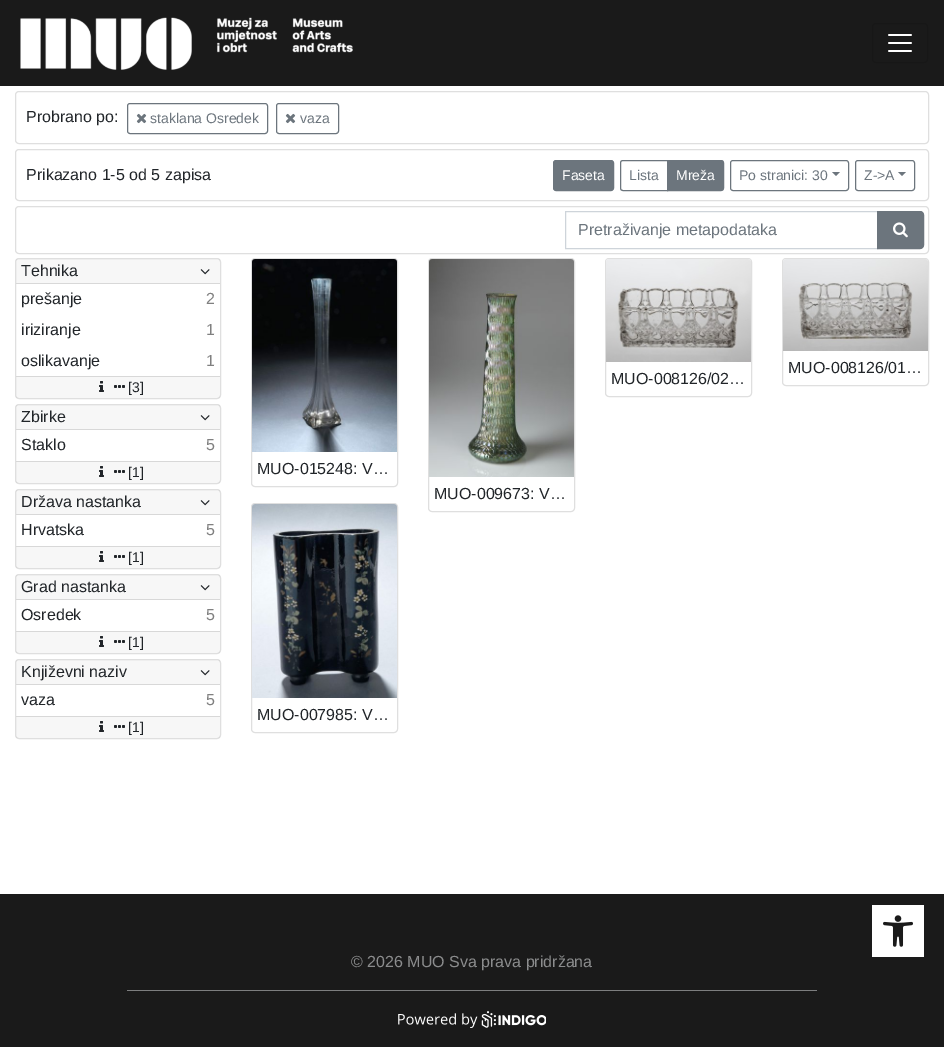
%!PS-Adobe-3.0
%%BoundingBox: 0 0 944 1047
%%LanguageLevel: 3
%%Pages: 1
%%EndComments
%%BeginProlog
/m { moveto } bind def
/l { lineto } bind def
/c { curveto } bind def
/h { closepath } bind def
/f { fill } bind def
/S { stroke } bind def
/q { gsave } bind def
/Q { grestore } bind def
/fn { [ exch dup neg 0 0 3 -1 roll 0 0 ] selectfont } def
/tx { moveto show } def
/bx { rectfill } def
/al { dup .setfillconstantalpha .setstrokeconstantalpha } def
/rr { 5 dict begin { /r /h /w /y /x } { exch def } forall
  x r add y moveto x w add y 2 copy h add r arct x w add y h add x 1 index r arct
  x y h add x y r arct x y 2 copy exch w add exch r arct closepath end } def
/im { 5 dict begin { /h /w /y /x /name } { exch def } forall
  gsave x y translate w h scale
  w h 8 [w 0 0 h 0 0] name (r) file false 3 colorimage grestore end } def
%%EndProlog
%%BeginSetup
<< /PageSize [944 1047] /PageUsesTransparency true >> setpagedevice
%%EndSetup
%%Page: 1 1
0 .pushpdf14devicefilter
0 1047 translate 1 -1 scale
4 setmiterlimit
1 setgray
0 0 944 1047 bx
0.102 setgray
0 0 944 86 bx
(image0.raw) 20 17 333 53 im
0.09 setgray
872.5 23.5 55 39 3.5 rr S
(image1.raw) 888 34 24 18 im
0.875 setgray
15.5 91.5 913 52 3.5 rr S
/LiberationSans-Regular 16 fn
0.129 0.145 0.161 setrgbcolor
(Probrano po:) 26 122 tx
0.424 0.459 0.49 setrgbcolor
127.5 103.5 140 30 2.5 rr S
(image2.raw) 136 113 11 11 im
/LiberationSans-Regular 14 fn
(staklana Osredek) 150 123 tx
276.5 103.5 62 30 2.5 rr S
(image2.raw) 285 113 11 11 im
(vaza) 300 123 tx
0.875 setgray
15.5 149.5 913 51 3.5 rr S
/LiberationSans-Regular 16 fn
0.129 0.145 0.161 setrgbcolor
(Prikazano 1-5 od 5 zapisa) 26 180 tx
0.424 0.459 0.49 setrgbcolor
553.5 160.5 60 30 2.5 rr q f Q
S
/LiberationSans-Regular 14 fn
1 setgray
(Faseta) 562 180 tx
0.424 0.459 0.49 setrgbcolor
623 160.5 m 667.5 160.5 l 667.5 190.5 l 623 190.5 l 621.5 190.5 620.5 189.5 620.5 188 c 620.5 163 l 620.5 161.5 621.5 160.5 623 160.5 c h S
(Lista) 629 180 tx
667.5 160.5 m 721 160.5 l 722.5 160.5 723.5 161.5 723.5 163 c 723.5 188 l 723.5 189.5 722.5 190.5 721 190.5 c 667.5 190.5 l h q f Q
S
1 setgray
(Mreža) 676 180 tx
0.424 0.459 0.49 setrgbcolor
730.5 160.5 118 30 2.5 rr S
(Po stranici: 30) 739 180 tx
832 172 m 840 172 l 836 176 l h f
855.5 160.5 59 30 2.5 rr S
(Z->A) 864 180 tx
898 172 m 906 172 l 902 176 l h f
0.875 setgray
15.5 206.5 913 47 3.5 rr S
0.808 0.831 0.855 setrgbcolor
565.5 211.5 312 37 rectstroke
/LiberationSans-Regular 16 fn
0.424 0.459 0.49 setrgbcolor
(Pretraživanje metapodataka) 578 235 tx
877.5 211.5 m 920 211.5 l 922 211.5 923.5 213 923.5 215 c 923.5 245 l 923.5 247 922 248.5 920 248.5 c 877.5 248.5 l h q f Q
S
(image3.raw) 893 222 15 16 im
0.875 setgray
15.5 258.5 205 140 3.5 rr S
0.03 al
0 setgray
16 259 204 24 bx
1 al
0.847 setgray
16 283 204 1 bx
0.129 0.145 0.161 setrgbcolor
(Tehnika) 21 276 tx
(image4.raw) 200 269 10 6 im
(prešanje) 21 304 tx
0.502 setgray
(2) 206 304 tx
0.129 0.145 0.161 setrgbcolor
(iriziranje) 21 335 tx
0.502 setgray
(1) 206 335 tx
0.129 0.145 0.161 setrgbcolor
(oslikavanje) 21 366 tx
0.502 setgray
(1) 206 366 tx
0.03 al
0 setgray
16 377 204 21 bx
1 al
0.847 setgray
16 376 204 1 bx
(image5.raw) 99 381 5 11 im
(image6.raw) 114 385 11 3 im
/LiberationSans-Regular 14 fn
0.129 0.145 0.161 setrgbcolor
([3]) 128 392 tx
0.875 setgray
15.5 404.5 205 79 3.5 rr S
0.03 al
0 setgray
16 405 204 24 bx
1 al
0.847 setgray
16 429 204 1 bx
/LiberationSans-Regular 16 fn
0.129 0.145 0.161 setrgbcolor
(Zbirke) 21 422 tx
(image4.raw) 200 415 10 6 im
(Staklo) 21 450 tx
0.502 setgray
(5) 206 450 tx
0.03 al
0 setgray
16 462 204 21 bx
1 al
0.847 setgray
16 461 204 1 bx
(image5.raw) 99 466 5 11 im
(image6.raw) 114 470 11 3 im
/LiberationSans-Regular 14 fn
0.129 0.145 0.161 setrgbcolor
([1]) 128 477 tx
0.875 setgray
15.5 489.5 205 79 3.5 rr S
0.03 al
0 setgray
16 490 204 24 bx
1 al
0.847 setgray
16 514 204 1 bx
/LiberationSans-Regular 16 fn
0.129 0.145 0.161 setrgbcolor
(Država nastanka) 21 507 tx
(image4.raw) 200 500 10 6 im
(Hrvatska) 21 535 tx
0.502 setgray
(5) 206 535 tx
0.03 al
0 setgray
16 547 204 21 bx
1 al
0.847 setgray
16 546 204 1 bx
(image5.raw) 99 551 5 11 im
(image6.raw) 114 555 11 3 im
/LiberationSans-Regular 14 fn
0.129 0.145 0.161 setrgbcolor
([1]) 128 562 tx
0.875 setgray
15.5 574.5 205 79 3.5 rr S
0.03 al
0 setgray
16 575 204 24 bx
1 al
0.847 setgray
16 599 204 1 bx
/LiberationSans-Regular 16 fn
0.129 0.145 0.161 setrgbcolor
(Grad nastanka) 21 592 tx
(image4.raw) 200 585 10 6 im
(Osredek) 21 620 tx
0.502 setgray
(5) 206 620 tx
0.03 al
0 setgray
16 632 204 21 bx
1 al
0.847 setgray
16 631 204 1 bx
(image5.raw) 99 636 5 11 im
(image6.raw) 114 640 11 3 im
/LiberationSans-Regular 14 fn
0.129 0.145 0.161 setrgbcolor
([1]) 128 647 tx
0.875 setgray
15.5 659.5 205 79 3.5 rr S
0.03 al
0 setgray
16 660 204 24 bx
1 al
0.847 setgray
16 684 204 1 bx
/LiberationSans-Regular 16 fn
0.129 0.145 0.161 setrgbcolor
(Književni naziv) 21 677 tx
(image4.raw) 200 670 10 6 im
(vaza) 21 705 tx
0.502 setgray
(5) 206 705 tx
0.03 al
0 setgray
16 717 204 21 bx
1 al
0.847 setgray
16 716 204 1 bx
(image5.raw) 99 721 5 11 im
(image6.raw) 114 725 11 3 im
/LiberationSans-Regular 14 fn
0.129 0.145 0.161 setrgbcolor
([1]) 128 732 tx
0.875 setgray
782.5 258.5 146 127 3.5 rr S
(image7.raw) 783 259 145 92 im
/LiberationSans-Regular 16 fn
0.129 0.145 0.161 setrgbcolor
(MUO-008126/01…) 788 373 tx
0.875 setgray
605.5 258.5 146 138 3.5 rr S
(image8.raw) 606 259 145 103 im
0.129 0.145 0.161 setrgbcolor
(MUO-008126/02…) 611 384 tx
0.875 setgray
251.5 258.5 146 228 3.5 rr S
(image9.raw) 252 259 145 193 im
0.129 0.145 0.161 setrgbcolor
(MUO-015248: V…) 257 474 tx
0.875 setgray
428.5 258.5 146 253 3.5 rr S
(image10.raw) 429 259 145 218 im
0.129 0.145 0.161 setrgbcolor
(MUO-009673: V…) 434 499 tx
0.875 setgray
251.5 503.5 146 229 3.5 rr S
(image11.raw) 252 504 145 194 im
0.129 0.145 0.161 setrgbcolor
(MUO-007985: V…) 257 720 tx
0.102 setgray
0 894 944 153 bx
1 setgray
872 905 52 52 bx
(image12.raw) 883 915 30 32 im
0.545 0.549 0.553 setrgbcolor
(© 2026 MUO Sva prava pridržana) 351 967 tx
0.49 0.494 0.498 setrgbcolor
127 990 690 1 bx
(image13.raw) 398 1011 148 17 im
.poppdf14devicefilter showpage
%%EOF
